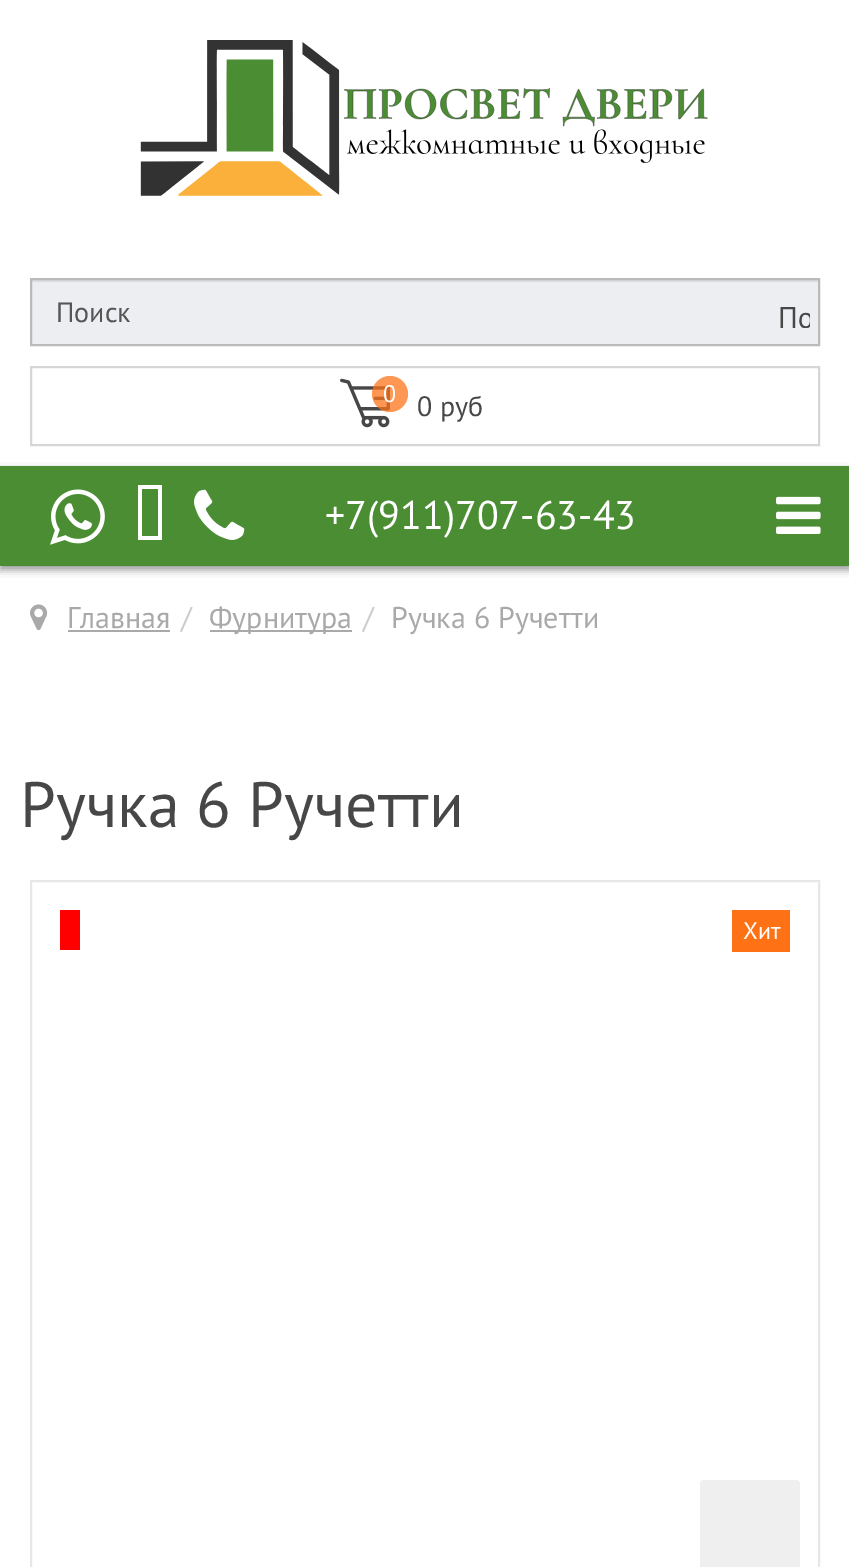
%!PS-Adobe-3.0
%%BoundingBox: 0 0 849 1567
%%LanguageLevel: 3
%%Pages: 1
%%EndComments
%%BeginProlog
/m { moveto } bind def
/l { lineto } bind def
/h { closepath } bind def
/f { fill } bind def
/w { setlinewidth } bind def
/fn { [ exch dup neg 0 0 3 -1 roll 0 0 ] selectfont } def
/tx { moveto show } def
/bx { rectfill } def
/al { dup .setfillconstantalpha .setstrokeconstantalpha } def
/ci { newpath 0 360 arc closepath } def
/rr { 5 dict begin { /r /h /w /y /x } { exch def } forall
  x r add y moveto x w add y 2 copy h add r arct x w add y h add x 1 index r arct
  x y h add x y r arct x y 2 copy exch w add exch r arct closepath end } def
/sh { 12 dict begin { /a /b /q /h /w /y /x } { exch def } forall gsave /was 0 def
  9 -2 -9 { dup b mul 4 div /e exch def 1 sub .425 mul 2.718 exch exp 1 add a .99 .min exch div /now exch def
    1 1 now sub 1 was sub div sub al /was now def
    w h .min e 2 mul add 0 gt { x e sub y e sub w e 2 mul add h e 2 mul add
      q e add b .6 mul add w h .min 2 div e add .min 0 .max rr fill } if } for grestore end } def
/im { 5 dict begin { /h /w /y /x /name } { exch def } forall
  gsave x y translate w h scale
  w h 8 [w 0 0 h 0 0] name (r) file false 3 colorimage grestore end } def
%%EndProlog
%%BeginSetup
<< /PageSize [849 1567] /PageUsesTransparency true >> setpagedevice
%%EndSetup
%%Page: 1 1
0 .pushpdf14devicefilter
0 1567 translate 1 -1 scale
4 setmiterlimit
1 setgray
0 0 849 1567 bx
(image0.raw) 140 40 568 156 im
0.925 0.933 0.945 setrgbcolor
32 282 786 62 bx
0.855 0.863 0.875 setrgbcolor
32 280 786 2 bx
0.729 setgray
2 w
31 279 788 66 rectstroke
/PTSans-Regular 28 fn
0.333 setgray
(Поиск) 56 322 tx
(image1.raw) 780 307 30 21 im
0.839 setgray
31 367 788 78 rectstroke
(image2.raw) 340 378 50 50 im
0.73 al
1 0.443 0.082 setrgbcolor
390 394 18 ci f
/PTSans-Regular 24 fn
1 al
1 setgray
(0) 383 402 tx
/PTSans-Regular 28 fn
0.278 setgray
(0 руб) 417 416 tx
0 setgray
0 470 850 100 0 4 0.4 sh
0.294 0.553 0.196 setrgbcolor
0 466 849 100 bx
(image3.raw) 50 489 55 56 im
1 setgray
142 536 m 158 536 l 158 489 l 142 489 l h 138 540 m 138 485 l 162 485 l 162 540 l h f
(image4.raw) 194 489 51 51 im
/PTSans-Regular 40 fn
(+7\(911\)707-63-43) 325 529 tx
(image5.raw) 776 496 45 38 im
(image6.raw) 30 604 18 27 im
/PTSans-Regular 30 fn
0.663 setgray
(Главная) 67 628 tx
68 630 102 2 bx
0.8 setgray
(/) 181 628 tx
0.663 setgray
210 630 142 2 bx
(Фурнитура) 209 628 tx
0.8 setgray
(/) 363 628 tx
0.663 setgray
(Ручка 6 Ручетти) 391 628 tx
/PTSans-Regular 64 fn
0.278 setgray
(Ручка 6 Ручетти) 20 827 tx
0.906 setgray
31 881 788 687 rectstroke
0.937 setgray
700 1480 100 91 4 rr f
1 0 0 setrgbcolor
60 910 20 40 bx
1 0.443 0.082 setrgbcolor
732 910 58 42 bx
/PTSans-Regular 24 fn
1 setgray
(Хит) 743 939 tx
.poppdf14devicefilter showpage
%%EOF
